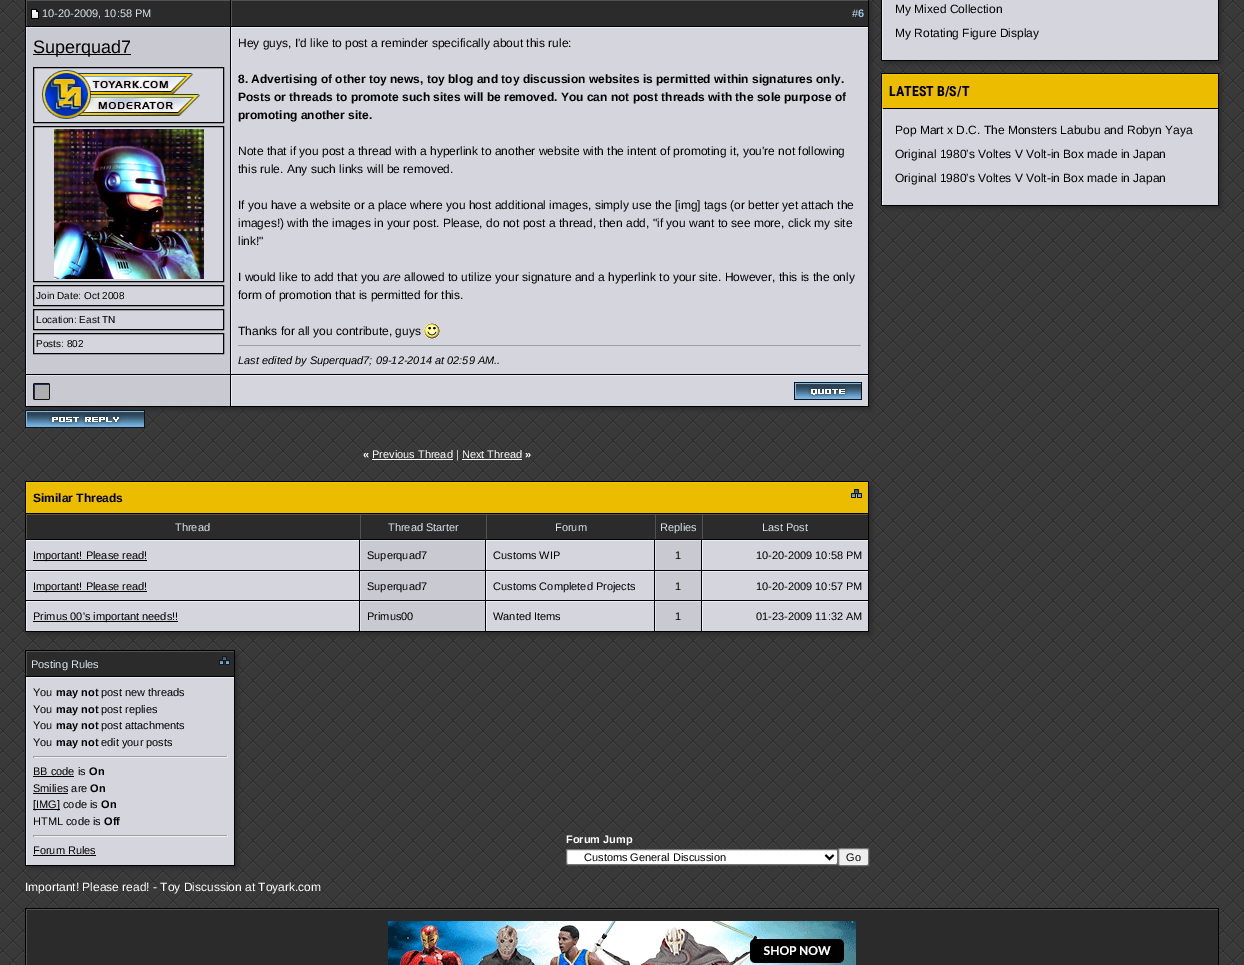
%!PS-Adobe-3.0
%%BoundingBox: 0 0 1244 965
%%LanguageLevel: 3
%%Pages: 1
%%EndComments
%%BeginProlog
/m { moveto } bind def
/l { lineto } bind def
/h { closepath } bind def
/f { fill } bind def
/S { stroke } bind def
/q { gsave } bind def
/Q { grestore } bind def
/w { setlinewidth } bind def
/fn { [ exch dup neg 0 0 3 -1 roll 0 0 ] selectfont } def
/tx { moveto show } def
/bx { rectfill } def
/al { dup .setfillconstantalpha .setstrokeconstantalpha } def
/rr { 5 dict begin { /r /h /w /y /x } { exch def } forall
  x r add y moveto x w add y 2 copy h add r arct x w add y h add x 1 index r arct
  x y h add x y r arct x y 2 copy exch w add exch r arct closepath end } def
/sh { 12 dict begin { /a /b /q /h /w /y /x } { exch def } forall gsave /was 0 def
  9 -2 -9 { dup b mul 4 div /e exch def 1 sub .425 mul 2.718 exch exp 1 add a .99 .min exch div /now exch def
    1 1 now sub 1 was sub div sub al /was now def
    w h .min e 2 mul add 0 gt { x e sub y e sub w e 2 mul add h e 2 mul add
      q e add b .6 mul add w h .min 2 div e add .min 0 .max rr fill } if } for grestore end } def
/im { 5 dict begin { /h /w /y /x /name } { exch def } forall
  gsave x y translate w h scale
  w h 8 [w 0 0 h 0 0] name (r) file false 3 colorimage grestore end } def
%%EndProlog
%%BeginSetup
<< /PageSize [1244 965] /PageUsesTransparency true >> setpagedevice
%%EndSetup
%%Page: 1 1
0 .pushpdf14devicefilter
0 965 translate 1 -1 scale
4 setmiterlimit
1 setgray
0 0 1244 965 bx
(image0.raw) 0 0 1244 965 im
0.161 0.161 0.169 setrgbcolor
29 3 842 406 0 2.5 1 sh
0 setgray
25 0 844 407 bx
0.169 setgray
27 1 203 25 bx
0.322 setgray
26 0 204 1 bx
26 0 1 26 bx
(image1.raw) 31 9 8 10 im
/LiberationSans-Regular 11 fn
0.847 0.894 0.929 setrgbcolor
(10-20-2009, 10:58 PM) 42 17 tx
0.169 setgray
232 1 636 25 bx
0.322 setgray
231 0 637 1 bx
231 0 1 26 bx
0.847 0.894 0.929 setrgbcolor
(#) 852 17 tx
/LiberationSans-Bold 11 fn
0.569 0.773 0.929 setrgbcolor
(6) 858 17 tx
0.788 0.788 0.82 setrgbcolor
27 28 203 346 bx
0.882 0.882 0.922 setrgbcolor
26 27 204 1 bx
26 27 1 347 bx
0 setgray
33 54 98 1 bx
/LiberationSans-Regular 18 fn
(Superquad7) 33 53 tx
0.835 0.835 0.871 setrgbcolor
33.5 67.5 m 223.5 67.5 l 223.5 122.5 l 33.5 122.5 l h q f Q
0 setgray
S
(image2.raw) 42 70 158 49 im
0.835 0.835 0.871 setrgbcolor
33.5 126.5 m 223.5 126.5 l 223.5 281.5 l 33.5 281.5 l h q f Q
0 setgray
S
(image3.raw) 54 129 150 150 im
0.835 0.835 0.871 setrgbcolor
33.5 285.5 m 223.5 285.5 l 223.5 305.5 l 33.5 305.5 l h q f Q
0 setgray
S
/LiberationSans-Regular 10 fn
(Join Date: Oct 2008) 36 299 tx
0.835 0.835 0.871 setrgbcolor
33.5 309.5 m 223.5 309.5 l 223.5 329.5 l 33.5 329.5 l h q f Q
0 setgray
S
(Location: East TN) 36 323 tx
0.835 0.835 0.871 setrgbcolor
33.5 333.5 m 223.5 333.5 l 223.5 353.5 l 33.5 353.5 l h q f Q
0 setgray
S
(Posts: 802) 36 347 tx
0.835 0.835 0.871 setrgbcolor
232 28 636 346 bx
0.929 0.929 0.969 setrgbcolor
231 27 637 1 bx
231 27 1 347 bx
/LiberationSans-Regular 12 fn
0 setgray
(Hey guys, I'd like to post a reminder specifically about this rule:) 238 47 tx
/LiberationSans-Bold 12 fn
(8. Advertising of other toy news, toy blog and toy discussion websites is permitted within signatures only.) 238 83 tx
(Posts or threads to promote such sites will be removed. You can not post threads with the sole purpose of) 238 101 tx
(promoting another site.) 238 119 tx
/LiberationSans-Regular 12 fn
(Note that if you post a thread with a hyperlink to another website with the intent of promoting it, you're not following) 238 155 tx
(this rule. Any such links will be removed.) 238 173 tx
(If you have a website or a place where you host additional images, simply use the [img] tags \(or better yet attach the) 238 209 tx
(images!\) with the images in your post. Please, do not post a thread, then add, "if you want to see more, click my site) 238 227 tx
(link!") 238 245 tx
(I would like to add that you) 238 281 tx
/LiberationSans-Italic 12 fn
(are) 383 281 tx
/LiberationSans-Regular 12 fn
(allowed to utilize your signature and a hyperlink to your site. However, this is the only) 404 281 tx
(form of promotion that is permitted for this.) 238 299 tx
(Thanks for all you contribute, guys) 238 335 tx
(image4.raw) 424 323 16 16 im
0.624 setgray
238 345 624 1 bx
0.933 setgray
861 345 1 1 bx
/LiberationSans-Italic 11 fn
0 setgray
(Last edited by Superquad7; 09-12-2014 at 02:59 AM..) 238 364 tx
0.788 0.788 0.82 setrgbcolor
27 376 203 30 bx
0.882 0.882 0.922 setrgbcolor
26 375 204 1 bx
26 375 1 31 bx
(image5.raw) 33 383 17 17 im
0.835 0.835 0.871 setrgbcolor
232 376 636 30 bx
0.929 0.929 0.969 setrgbcolor
231 375 637 1 bx
231 375 1 31 bx
(image6.raw) 794 382 68 18 im
(image7.raw) 25 410 120 18 im
/LiberationSans-Bold 11 fn
1 setgray
(«) 363 458 tx
372 459 81 1 bx
/LiberationSans-Regular 11 fn
(Previous Thread | Next Thread) 372 458 tx
/LiberationSans-Bold 11 fn
(») 525 458 tx
462 459 60 1 bx
0.161 0.161 0.169 setrgbcolor
29 485 842 149 0 2.5 1 sh
0 setgray
25 481 844 151 bx
0.922 0.737 0 setrgbcolor
27 483 841 30 bx
0.922 0.796 0 setrgbcolor
26 482 842 1 bx
26 482 1 31 bx
/LiberationSans-Bold 12 fn
0 setgray
(Similar Threads) 33 502 tx
(image8.raw) 851 489 11 9 im
0.169 setgray
27 515 675 24 bx
0.322 setgray
26 514 842 1 bx
26 514 1 25 bx
/LiberationSans-Regular 11 fn
0.847 0.894 0.929 setrgbcolor
(Thread) 175 531 tx
0.322 setgray
360 514 1 25 bx
0.847 0.894 0.929 setrgbcolor
(Thread Starter) 388 531 tx
0.322 setgray
486 514 1 25 bx
0.847 0.894 0.929 setrgbcolor
(Forum) 555 531 tx
0.322 setgray
655 514 1 25 bx
0.847 0.894 0.929 setrgbcolor
(Replies) 660 531 tx
0.169 setgray
703 515 165 24 bx
0.322 setgray
702 514 1 25 bx
0.847 0.894 0.929 setrgbcolor
(Last Post) 762 531 tx
0.835 0.835 0.871 setrgbcolor
27 541 332 29 bx
0.929 0.929 0.969 setrgbcolor
26 540 333 1 bx
26 540 1 30 bx
0 setgray
33 560 114 1 bx
(Important! Please read!) 33 559 tx
0.788 0.788 0.82 setrgbcolor
361 541 124 29 bx
0.882 0.882 0.922 setrgbcolor
360 540 125 1 bx
360 540 1 30 bx
0 setgray
(Superquad7) 367 559 tx
0.835 0.835 0.871 setrgbcolor
487 541 167 29 bx
0.929 0.929 0.969 setrgbcolor
486 540 168 1 bx
486 540 1 30 bx
0 setgray
(Customs WIP) 493 559 tx
0.788 0.788 0.82 setrgbcolor
656 541 45 29 bx
0.882 0.882 0.922 setrgbcolor
655 540 46 1 bx
655 540 1 30 bx
0 setgray
(1) 675 559 tx
0.835 0.835 0.871 setrgbcolor
703 541 165 29 bx
0.929 0.929 0.969 setrgbcolor
702 540 166 1 bx
702 540 1 30 bx
0 setgray
(10-20-2009 10:58 PM) 756 559 tx
0.835 0.835 0.871 setrgbcolor
27 572 332 28 bx
0.929 0.929 0.969 setrgbcolor
26 571 333 1 bx
26 571 1 29 bx
0 setgray
33 591 114 1 bx
(Important! Please read!) 33 590 tx
0.788 0.788 0.82 setrgbcolor
361 572 124 28 bx
0.882 0.882 0.922 setrgbcolor
360 571 125 1 bx
360 571 1 29 bx
0 setgray
(Superquad7) 367 590 tx
0.835 0.835 0.871 setrgbcolor
487 572 167 28 bx
0.929 0.929 0.969 setrgbcolor
486 571 168 1 bx
486 571 1 29 bx
0 setgray
(Customs Completed Projects) 493 590 tx
0.788 0.788 0.82 setrgbcolor
656 572 45 28 bx
0.882 0.882 0.922 setrgbcolor
655 571 46 1 bx
655 571 1 29 bx
0 setgray
(1) 675 590 tx
0.835 0.835 0.871 setrgbcolor
703 572 165 28 bx
0.929 0.929 0.969 setrgbcolor
702 571 166 1 bx
702 571 1 29 bx
0 setgray
(10-20-2009 10:57 PM) 756 590 tx
0.835 0.835 0.871 setrgbcolor
27 602 332 29 bx
0.929 0.929 0.969 setrgbcolor
26 601 333 1 bx
26 601 1 30 bx
0 setgray
33 621 145 1 bx
(Primus 00's important needs!!) 33 620 tx
0.788 0.788 0.82 setrgbcolor
361 602 124 29 bx
0.882 0.882 0.922 setrgbcolor
360 601 125 1 bx
360 601 1 30 bx
0 setgray
(Primus00) 367 620 tx
0.835 0.835 0.871 setrgbcolor
487 602 167 29 bx
0.929 0.929 0.969 setrgbcolor
486 601 168 1 bx
486 601 1 30 bx
0 setgray
(Wanted Items) 493 620 tx
0.788 0.788 0.82 setrgbcolor
656 602 45 29 bx
0.882 0.882 0.922 setrgbcolor
655 601 46 1 bx
655 601 1 30 bx
0 setgray
(1) 675 620 tx
0.835 0.835 0.871 setrgbcolor
703 602 165 29 bx
0.929 0.929 0.969 setrgbcolor
702 601 166 1 bx
702 601 1 30 bx
0 setgray
(01-23-2009 11:32 AM) 756 620 tx
0.161 0.161 0.169 setrgbcolor
29 654 208 214 0 2.5 1 sh
0 setgray
25 650 210 216 bx
0.169 setgray
27 652 207 24 bx
0.322 setgray
26 651 208 1 bx
26 651 1 25 bx
0.847 0.894 0.929 setrgbcolor
(Posting Rules) 31 668 tx
(image9.raw) 219 656 11 9 im
0.835 0.835 0.871 setrgbcolor
27 678 207 187 bx
0.929 0.929 0.969 setrgbcolor
26 677 208 1 bx
26 677 1 188 bx
0 setgray
(You) 33 696 tx
/LiberationSans-Bold 11 fn
(may not) 56 696 tx
/LiberationSans-Regular 11 fn
(post new threads) 101 696 tx
(You) 33 713 tx
/LiberationSans-Bold 11 fn
(may not) 56 713 tx
/LiberationSans-Regular 11 fn
(post replies) 101 713 tx
(You) 33 729 tx
/LiberationSans-Bold 11 fn
(may not) 56 729 tx
/LiberationSans-Regular 11 fn
(post attachments) 101 729 tx
(You) 33 746 tx
/LiberationSans-Bold 11 fn
(may not) 56 746 tx
/LiberationSans-Regular 11 fn
(edit your posts) 101 746 tx
0.624 setgray
33 756 195 1 bx
0.933 setgray
227 756 1 2 bx
33 757 195 1 bx
0.624 setgray
33 756 1 2 bx
0 setgray
(BB code is) 33 775 tx
33 776 41 1 bx
/LiberationSans-Bold 11 fn
(On) 89 775 tx
/LiberationSans-Regular 11 fn
(Smilies are) 33 792 tx
33 793 35 1 bx
/LiberationSans-Bold 11 fn
(On) 90 792 tx
33 809 27 1 bx
/LiberationSans-Regular 11 fn
([IMG] code is) 33 808 tx
/LiberationSans-Bold 11 fn
(On) 101 808 tx
/LiberationSans-Regular 11 fn
(HTML code is) 33 825 tx
/LiberationSans-Bold 11 fn
(Off) 104 825 tx
0.624 setgray
33 835 195 1 bx
0.933 setgray
227 835 1 2 bx
33 836 195 1 bx
0.624 setgray
33 835 1 2 bx
/LiberationSans-Regular 11 fn
0 setgray
(Forum Rules) 33 854 tx
33 855 63 1 bx
/LiberationSans-Bold 11 fn
1 setgray
(Forum Jump) 566 843 tx
566.5 849.5 271 15 1.5 rr q f Q
0.463 setgray
S
0 setgray
2 w
825.5 855 m 829.5 859 l 833.5 855 l S
/LiberationSans-Regular 11 fn
(Customs General Discussion) 584 861 tx
0.937 setgray
838.5 848.5 30 17 1.5 rr q f Q
0.463 setgray
1 w
S
0 setgray
(Go) 846 861 tx
/LiberationSans-Regular 12 fn
1 setgray
(Important! Please read! - Toy Discussion at Toyark.com) 25 891 tx
0.161 0.161 0.169 setrgbcolor
885 -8 336 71 0 2.5 1 sh
0 setgray
881 0 338 61 bx
0.835 0.835 0.871 setrgbcolor
883 0 335 60 bx
0.929 0.929 0.969 setrgbcolor
882 0 1 60 bx
0 setgray
(My Mixed Collection) 895 13 tx
(My Rotating Figure Display) 895 37 tx
0.161 0.161 0.169 setrgbcolor
885 77 336 131 0 2.5 1 sh
0 setgray
881 73 338 133 bx
0.922 0.737 0 setrgbcolor
883 75 335 33 bx
0.922 0.796 0 setrgbcolor
882 74 336 1 bx
882 74 1 35 bx
/RobotoCondensed-Bold 14 fn
0 setgray
(LATEST B/S/T) 889 96 tx
0.835 0.835 0.871 setrgbcolor
882 109 336 6 bx
0.929 0.929 0.969 setrgbcolor
882 109 1 96 bx
0.835 0.835 0.871 setrgbcolor
883 115 335 90 bx
/LiberationSans-Regular 12 fn
0 setgray
(Pop Mart x D.C. The Monsters Labubu and Robyn Yaya) 895 134 tx
(Original 1980's Voltes V Volt-in Box made in Japan) 895 158 tx
(Original 1980's Voltes V Volt-in Box made in Japan) 895 182 tx
0.169 setgray
27 910 1191 55 bx
q
26 909 1192 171 rectclip
0.322 setgray
-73 810 m 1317 810 l 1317 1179 l -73 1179 l h 27 910 m 1219 910 l 1219 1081 l 27 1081 l h eofill
Q
0 setgray
25 908 1194 1 bx
1218 908 1 57 bx
25 908 1 57 bx
(image10.raw) 388 921 468 44 im
.poppdf14devicefilter showpage
%%EOF
